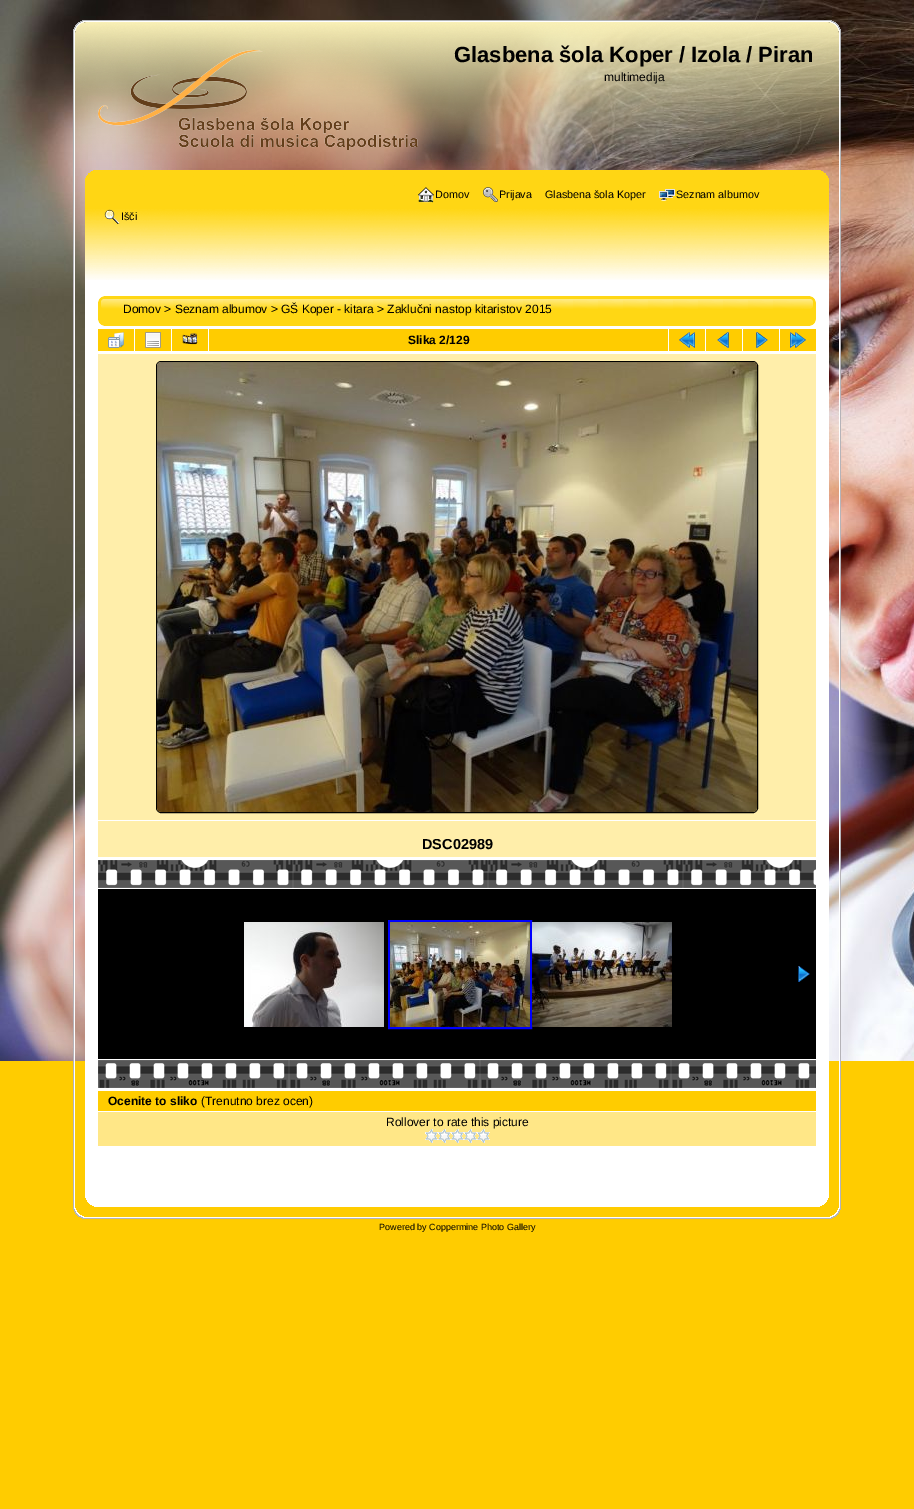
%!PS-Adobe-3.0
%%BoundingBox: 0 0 914 1509
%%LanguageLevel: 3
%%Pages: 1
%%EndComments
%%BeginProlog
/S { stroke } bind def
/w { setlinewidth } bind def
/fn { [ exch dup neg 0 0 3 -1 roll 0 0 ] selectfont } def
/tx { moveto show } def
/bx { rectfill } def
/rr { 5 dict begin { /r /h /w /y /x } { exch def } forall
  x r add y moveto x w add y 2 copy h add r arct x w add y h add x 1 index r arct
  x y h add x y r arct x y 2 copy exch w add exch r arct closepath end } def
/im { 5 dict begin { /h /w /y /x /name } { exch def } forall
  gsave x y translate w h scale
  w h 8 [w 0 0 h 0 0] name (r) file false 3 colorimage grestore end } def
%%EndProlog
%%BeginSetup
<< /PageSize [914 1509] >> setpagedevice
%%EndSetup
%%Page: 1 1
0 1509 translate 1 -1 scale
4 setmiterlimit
1 0.8 0 setrgbcolor
0 0 914 1509 bx
(image0.raw) 0 0 914 1061 im
(image1.raw) 73 20 25 150 im
(image2.raw) 816 20 25 150 im
(image3.raw) 98 20 718 148 im
(image4.raw) 98 50 320 100 im
/LiberationSans-Bold 22 fn
0 setgray
(Glasbena šola Koper / Izola / Piran) 454 62 tx
/LiberationSans-Regular 12 fn
(multimedija) 604 81 tx
(image5.raw) 73 170 25 110 im
(image6.raw) 816 170 25 110 im
(image7.raw) 98 170 718 110 im
/LiberationSans-Regular 10.75 fn
(Glasbena šola Koper) 545 198 tx
(image8.raw) 659 189 16 12 im
(Seznam albumov) 676 198 tx
(image9.raw) 104 209 16 15 im
(Išči) 121 220 tx
(image10.raw) 418 187 16 16 im
(Domov) 435 198 tx
(image11.raw) 483 187 15 16 im
(Prijava) 499 198 tx
(image12.raw) 73 280 24 882 im
(image13.raw) 817 280 24 882 im
1 setgray
97 280 720 882 bx
(image14.raw) 98 296 25 30 im
(image15.raw) 791 296 25 30 im
(image16.raw) 123 296 668 30 im
/LiberationSans-Regular 12 fn
0 setgray
(Domov > Seznam albumov > GŠ Koper - kitara > Zaklučni nastop kitaristov 2015) 123 313 tx
1 0.8 0 setrgbcolor
98 329 36 22 bx
(image17.raw) 108 332 16 16 im
135 329 36 22 bx
(image18.raw) 145 332 16 16 im
172 329 36 22 bx
(image19.raw) 182 333 16 12 im
209 329 459 22 bx
/LiberationSans-Bold 12 fn
0 setgray
(Slika 2/129) 408 344 tx
1 0.8 0 setrgbcolor
669 329 36 22 bx
(image20.raw) 679 332 16 16 im
706 329 36 22 bx
(image21.raw) 717 332 12 16 im
743 329 36 22 bx
(image22.raw) 756 332 12 16 im
780 329 36 22 bx
(image23.raw) 790 332 16 16 im
1 0.933 0.667 setrgbcolor
98 354 718 466 bx
0 setgray
156.5 361.5 601 451 4.5 rr S
(image24.raw) 157 362 600 450 im
1 0.933 0.667 setrgbcolor
98 821 718 36 bx
/LiberationSans-Bold 14.5 fn
0 setgray
(DSC02989) 422 849 tx
(image25.raw) 98 860 718 28 im
98 889 718 170 bx
(image26.raw) 244 922 140 105 im
0 0 1 setrgbcolor
2 w
389 921 142 107 rectstroke
(image27.raw) 390 922 140 105 im
(image28.raw) 532 922 140 105 im
(image29.raw) 798 966 12 16 im
(image30.raw) 98 1060 718 28 im
1 0.8 0 setrgbcolor
98 1091 718 20 bx
/LiberationSans-Bold 12 fn
0 setgray
(Ocenite to sliko) 108 1105 tx
/LiberationSans-Regular 12 fn
(\(Trenutno brez ocen\)) 201 1105 tx
1 0.906 0.529 setrgbcolor
98 1112 718 34 bx
0 setgray
(Rollover to rate this picture) 386 1126 tx
(image31.raw) 425 1129 13 14 im
(image31.raw) 438 1129 13 14 im
(image31.raw) 451 1129 13 14 im
(image31.raw) 464 1129 13 14 im
(image31.raw) 477 1129 13 14 im
(image32.raw) 73 1162 25 57 im
(image33.raw) 816 1162 25 57 im
(image34.raw) 98 1162 718 57 im
/LiberationSans-Regular 9 fn
(Powered by Coppermine Photo Gallery) 379 1230 tx
showpage
%%EOF
